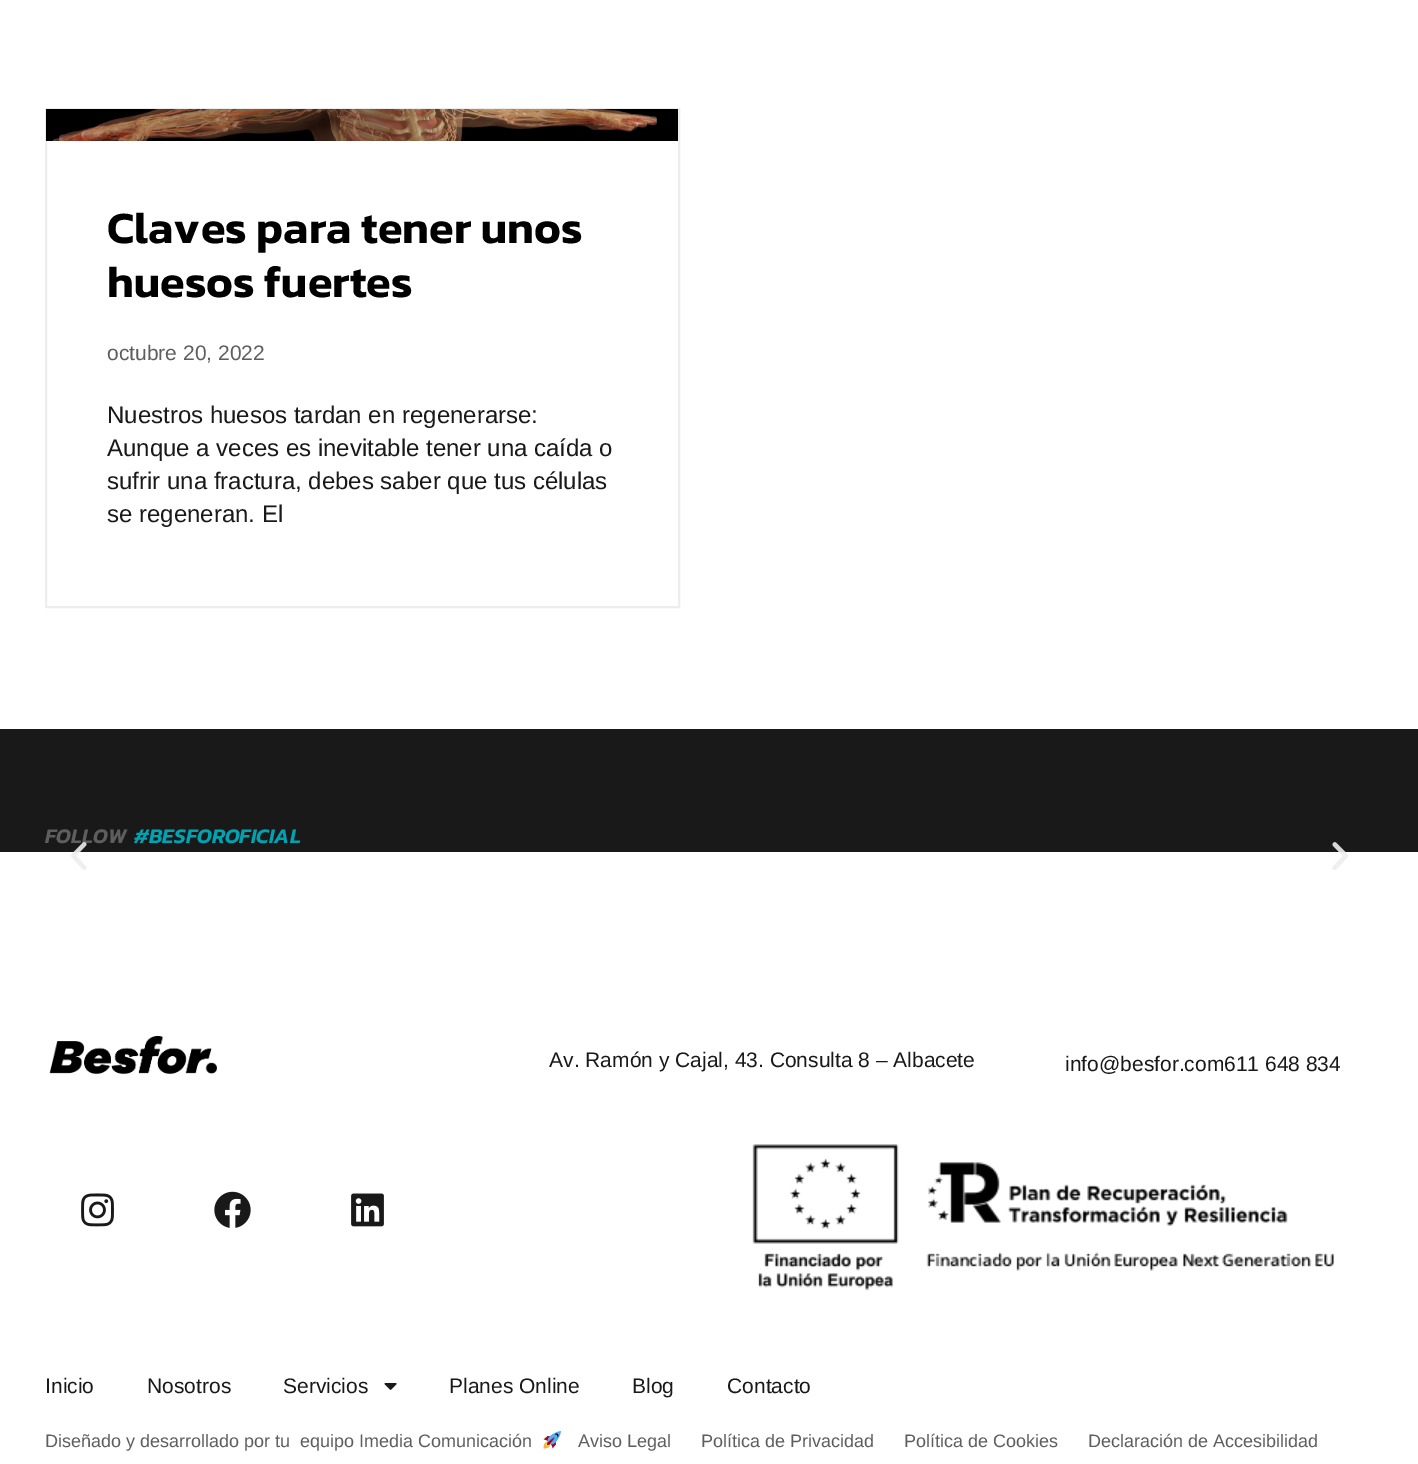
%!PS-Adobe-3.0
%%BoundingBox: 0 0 1418 1464
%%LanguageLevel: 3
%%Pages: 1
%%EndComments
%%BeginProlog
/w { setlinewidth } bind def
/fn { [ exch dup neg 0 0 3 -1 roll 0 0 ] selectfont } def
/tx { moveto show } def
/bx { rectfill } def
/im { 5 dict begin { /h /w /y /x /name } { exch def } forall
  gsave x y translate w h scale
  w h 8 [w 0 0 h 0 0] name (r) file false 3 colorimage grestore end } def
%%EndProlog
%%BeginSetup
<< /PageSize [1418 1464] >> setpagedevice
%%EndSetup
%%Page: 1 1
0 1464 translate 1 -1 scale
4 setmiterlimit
1 setgray
0 0 1418 1464 bx
0.929 setgray
2 w
46 109 633 498 rectstroke
(image0.raw) 46 109 632 32 im
/Kanit-SemiBold 45 fn
0 setgray
(Claves para tener unos) 107 243 tx
(huesos fuertes) 107 297 tx
/LiberationSans-Regular 21 fn
0.369 setgray
(octubre 20, 2022) 107 360 tx
/LiberationSans-Regular 24 fn
0.098 setgray
(Nuestros huesos tardan en regenerarse:) 107 423 tx
(Aunque a veces es inevitable tener una caída o) 107 456 tx
(sufrir una fractura, debes saber que tus células) 107 489 tx
(se regeneran. El) 107 522 tx
0 729 1418 123 bx
/Kanit-SemiBoldItalic 21 fn
0.369 setgray
(FOLLOW) 45 843 tx
0 0.639 0.698 setrgbcolor
(#BESFOROFICIAL) 134 843 tx
(image1.raw) 71 842 16 28 im
(image2.raw) 1332 842 16 28 im
(image3.raw) 49 1035 168 40 im
/LiberationSans-Regular 21 fn
0.098 setgray
(Av. Ramón y Cajal, 43. Consulta 8 – Albacete) 549 1067 tx
(info@besfor.com611 648 834) 1065 1071 tx
(image4.raw) 81 1193 33 34 im
(image5.raw) 214 1191 37 37 im
(image6.raw) 351 1193 33 34 im
(image7.raw) 752 1144 582 147 im
(Inicio) 45 1393 tx
(Nosotros) 147 1393 tx
(Servicios) 283 1393 tx
(image8.raw) 384 1383 13 7 im
(Planes Online) 449 1393 tx
(Blog) 632 1393 tx
(Contacto) 727 1393 tx
/LiberationSans-Regular 18 fn
0.369 setgray
(Diseñado y desarrollado por tu  equipo Imedia Comunicación) 45 1447 tx
(image9.raw) 543 1431 18 18 im
(Aviso Legal) 578 1447 tx
(Política de Privacidad) 701 1447 tx
(Política de Cookies) 904 1447 tx
(Declaración de Accesibilidad) 1088 1447 tx
showpage
%%EOF
